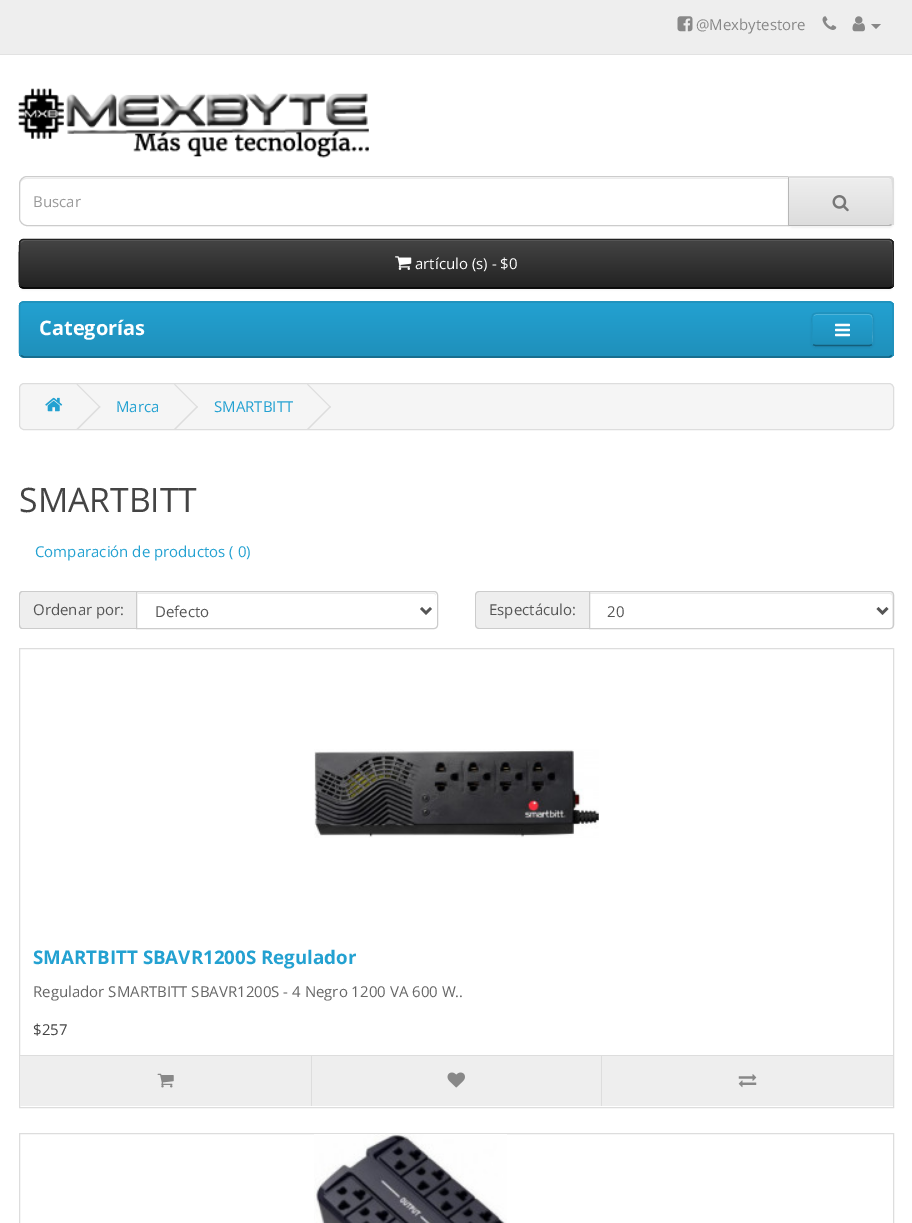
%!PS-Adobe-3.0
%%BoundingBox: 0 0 912 1223
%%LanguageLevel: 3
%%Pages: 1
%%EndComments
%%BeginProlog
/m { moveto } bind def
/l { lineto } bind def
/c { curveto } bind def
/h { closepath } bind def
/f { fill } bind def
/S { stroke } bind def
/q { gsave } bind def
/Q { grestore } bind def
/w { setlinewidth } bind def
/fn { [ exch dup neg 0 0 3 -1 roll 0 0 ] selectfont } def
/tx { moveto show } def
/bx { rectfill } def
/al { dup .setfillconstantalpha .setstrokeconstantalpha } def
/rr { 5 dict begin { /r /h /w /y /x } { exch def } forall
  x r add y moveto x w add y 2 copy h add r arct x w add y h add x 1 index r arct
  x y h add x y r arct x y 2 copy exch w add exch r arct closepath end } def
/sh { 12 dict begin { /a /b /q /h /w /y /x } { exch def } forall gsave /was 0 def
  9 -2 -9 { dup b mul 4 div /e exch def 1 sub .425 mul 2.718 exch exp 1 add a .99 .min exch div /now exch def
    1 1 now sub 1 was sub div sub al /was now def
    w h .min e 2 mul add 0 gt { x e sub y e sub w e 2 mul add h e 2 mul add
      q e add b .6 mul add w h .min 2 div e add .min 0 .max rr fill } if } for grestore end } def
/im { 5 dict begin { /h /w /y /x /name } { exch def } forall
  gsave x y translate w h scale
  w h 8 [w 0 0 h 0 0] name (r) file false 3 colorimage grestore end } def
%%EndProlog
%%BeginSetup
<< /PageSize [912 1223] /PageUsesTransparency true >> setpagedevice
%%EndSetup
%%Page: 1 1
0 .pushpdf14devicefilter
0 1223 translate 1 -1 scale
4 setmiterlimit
1 setgray
0 0 912 1223 bx
0.933 setgray
0 0 912 54 bx
0.886 setgray
0 54 912 1 bx
(image0.raw) 677 16 16 16 im
/OpenSans-Regular 15 fn
0.533 setgray
(@Mexbytestore) 696 30 tx
(image1.raw) 822 16 15 14 im
(image2.raw) 852 16 13 16 im
871 24 m 881 24 l 876 29 l h f
(image3.raw) 18 88 351 70 im
0.925 setgray
26 179 m 788 179 l 788 178 l 26 178 l 22 178 20 181 20 185 c 20 182 23 179 26 179 c h f
0.8 setgray
27 176.5 m 788.5 176.5 l 788.5 225.5 l 27 225.5 l 23 225.5 19.5 222 19.5 218 c 19.5 184 l 19.5 180 23 176.5 27 176.5 c h S
0.6 setgray
(Buscar) 33 207 tx
0 setgray
788 178 106 50 5 1 0.05 sh
q
788 176 m 889 176 l 892 176 894 178 894 181 c 894 221 l 894 224 892 226 889 226 c 788 226 l h clip newpath
q 789 178 m 894 178 l 894 225 l 789 225 l h clip newpath
<< /ShadingType 2 /ColorSpace /DeviceRGB /Coords [841 178 841 225] /Extend [true true] /Function << /FunctionType 2 /Domain [0 1] /C0 [0.933 0.933 0.933] /C1 [0.867 0.867 0.867] /N 1 >> >> shfill Q
Q
0.2 al
1 setgray
789 179 m 889 179 l 894 179 892 186 892 189 c 892 224 l 893 223 893 222 893 221 c 893 182 l 893 180 891 178 889 178 c 789 178 l h f
1 al
0.867 setgray
788 177 m 788 176 l 891 176 l 893 177 l 891 179 l 889 178 l 789 178 l h f
894 223 m 892 225 l 891 224 l 893 221 893 180 891 179 c 893 177 l 894 179 l h f
0.702 setgray
892 225 m 890 226 l 788 226 l 789 225 l 889 225 l 891 224 l h f
0.718 setgray
789 178 m 789 225 l 788 226 l 788 177 l h f
(image4.raw) 832 195 17 17 im
0 setgray
19 240 875 50 5 1 0.05 sh
0.212 setgray
19 239 875 50 5 rr f
q
19 239 875 50 5 rr clip newpath
q 19 240 m 894 240 l 894 288 l 19 288 l h clip newpath
<< /ShadingType 2 /ColorSpace /DeviceRGB /Coords [456 240 456 288] /Extend [true true] /Function << /FunctionType 2 /Domain [0 1] /C0 [0.267 0.267 0.267] /C1 [0.133 0.133 0.133] /N 1 >> >> shfill Q
Q
0.2 al
1 setgray
24 241 m 889 241 l 891 241 892 243 892 245 c 892 287 l 893 285 l 893 243 l 893 242 892 241 891 240 c 24 240 l 21 240 20 242 20 245 c 20 243 22 241 24 241 c h f
1 al
0 setgray
1.2 w
892 287 m 889 288 l 24 288 l 20.5 287 l S
0.133 setgray
20.5 287 m 19.5 284.5 l 19 281.5 19 243 20 241.5 c 21 240 22 239.5 23.5 239.5 c 889 239.5 l 890.5 239.5 891.5 240 892.5 241.5 c 893.5 243 893.5 281.5 893 284.5 c 892 287 l S
(image5.raw) 395 256 17 14 im
1 setgray
(artículo \(s\) - $0) 415 269 tx
0.133 0.604 0.784 setrgbcolor
19 301 875 57 5 rr f
q
19 301 875 57 5 rr clip newpath
q 19 303 m 894 303 l 894 356 l 19 356 l h clip newpath
<< /ShadingType 2 /ColorSpace /DeviceRGB /Coords [456 302 456 356] /Extend [true true] /Function << /FunctionType 2 /Domain [0 1] /C0 [0.137 0.631 0.82] /C1 [0.122 0.565 0.733] /N 1 >> >> shfill Q
Q
0.078 0.369 0.478 setrgbcolor
892 355.5 m 889 357 l 24 357 l 20.5 355.5 l S
0.122 0.565 0.733 setrgbcolor
20.5 355.5 m 20 355 19.5 353.5 19.5 352.5 c 19.5 306 l 19.5 305 20 304 20.5 303 c 21.5 302.5 22.5 302 24 302 c 889 302 l 890 302 891 302.5 892 303 c 892.5 304 893 305 893 306 c 893 352.5 l 893 353.5 892.5 355 892 355.5 c S
/OpenSans-Bold 20 fn
1 setgray
(Categorías) 39 335 tx
0 setgray
811 314 63 34 5 1 0.05 sh
0.133 0.604 0.784 setrgbcolor
811 313 63 33 5 rr f
q
811 313 63 33 5 rr clip newpath
q 811 314 m 874 314 l 874 345 l 811 345 l h clip newpath
<< /ShadingType 2 /ColorSpace /DeviceRGB /Coords [843 314 843 345] /Extend [true true] /Function << /FunctionType 2 /Domain [0 1] /C0 [0.137 0.631 0.82] /C1 [0.122 0.565 0.733] /N 1 >> >> shfill Q
Q
0.2 al
1 setgray
816 315 m 869 315 l 874 315 872 325 872 327 c 872 344 l 873 343 873 342 873 341 c 873 318 l 873 316 871 314 869 314 c 817 314 l 816 314 814 315 814 316 c h f
1 al
0.078 0.369 0.478 setrgbcolor
872 344.5 m 871 345 870 345.5 869 345.5 c 816 345.5 l 815 345.5 814 345 813 344.5 c S
0.122 0.565 0.733 setrgbcolor
813 344.5 m 810.5 341.5 812 332.5 812 329.5 c 812 313 809 313 825 313 c 860 313 l 876 313 873 313 873 329.5 c 873 332.5 874.5 341.5 872 344.5 c S
(image6.raw) 835 323 15 14 im
0.961 setgray
19.5 383.5 874 46 4.5 rr q f Q
0.867 setgray
1 w
S
(image7.raw) 45 397 18 15 im
76.5 384.5 m 77.5 384 l 100.5 407 l 99.5 407.5 l h f
76.5 429 m 99.5 406 l 100.5 407 l 77.5 430 l h f
/OpenSans-Regular 15 fn
0.137 0.631 0.82 setrgbcolor
(Marca) 116 412 tx
0.867 setgray
174 384.5 m 175 384 l 198 407 l 197 407.5 l h f
174 429 m 197 406 l 198 407 l 175 430 l h f
0.137 0.631 0.82 setrgbcolor
(SMARTBITT) 214 412 tx
0.867 setgray
307 384.5 m 308 384 l 331 407 l 330 407.5 l h f
307 429 m 330 406 l 331 407 l 308 430 l h f
/OpenSans-Regular 33.75 fn
0.267 setgray
(SMARTBITT) 19 512 tx
/OpenSans-Regular 15 fn
0.137 0.631 0.82 setrgbcolor
(Comparación de productos \( 0\)) 35 557 tx
0.933 setgray
23 591 m 136 591 l 136 629 l 23 629 l 21 629 19 627 19 625 c 19 595 l 19 593 21 591 23 591 c h f
0.8 setgray
22 591 m 136 591 l 136 629 l 22 629 l 20 629 19 627 19 625 c 19 595 l 19 593 20 591 22 591 c h 22 592 m 136 592 l 136 628 l 22 628 l 21 628 20 626 20 625 c 20 595 l 20 594 21 592 22 592 c h eofill
0.333 setgray
(Ordenar por:) 33 615 tx
0.925 setgray
138 594 m 434 594 l 435 594 436 595 436 596 c 436 594 435 593 434 593 c 138 593 l h f
0.8 setgray
136.5 591.5 m 434 591.5 l 436 591.5 437.5 593 437.5 595 c 437.5 625 l 437.5 627 436 628.5 434 628.5 c 136.5 628.5 l h S
0.333 setgray
2.5 w
421 608 m 426 613 l 431 608 l S
(Defecto) 155 617 tx
0.933 setgray
479 591 m 589 591 l 589 629 l 479 629 l 477 629 475 627 475 625 c 475 595 l 475 593 477 591 479 591 c h f
0.8 setgray
479 591 m 589 591 l 589 629 l 479 629 l 477 629 475 627 475 625 c 475 595 l 475 593 477 591 479 591 c h 479 592 m 589 592 l 589 628 l 479 628 l 477 628 476 626 476 625 c 476 595 l 476 594 477 592 479 592 c h eofill
0.333 setgray
(Espectáculo:) 489 615 tx
0.925 setgray
590 594 m 890 594 l 891 594 892 595 892 596 c 892 628 l 892 627 893 626 893 626 c 893 596 l 893 594 892 593 890 593 c 590 593 l h f
0.8 setgray
1 w
589.5 591.5 m 890 591.5 l 892 591.5 893.5 593 893.5 595 c 893.5 625 l 893.5 627 892 628.5 890 628.5 c 589.5 628.5 l h S
0.333 setgray
2.5 w
877.5 608 m 882.5 613 l 887.5 608 l S
(20) 607 617 tx
0.867 setgray
1 w
19.5 648.5 874 459 rectstroke
(image8.raw) 314 749 285 89 im
/OpenSans-Bold 18.75 fn
0.137 0.631 0.82 setrgbcolor
(SMARTBITT SBAVR1200S Regulador) 33 964 tx
/OpenSans-Regular 15 fn
0.4 setgray
(Regulador SMARTBITT SBAVR1200S - 4 Negro 1200 VA 600 W..) 33 997 tx
0.267 setgray
($257) 33 1035 tx
0.933 setgray
20 1056 873 50 bx
0.867 setgray
20 1055 873 1 bx
(image9.raw) 157 1073 17 15 im
311 1056 1 50 bx
(image10.raw) 447 1072 18 16 im
601 1056 1 50 bx
(image11.raw) 738 1074 19 14 im
19.5 1133.5 874 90 rectstroke
(image12.raw) 314 1134 193 89 im
.poppdf14devicefilter showpage
%%EOF
